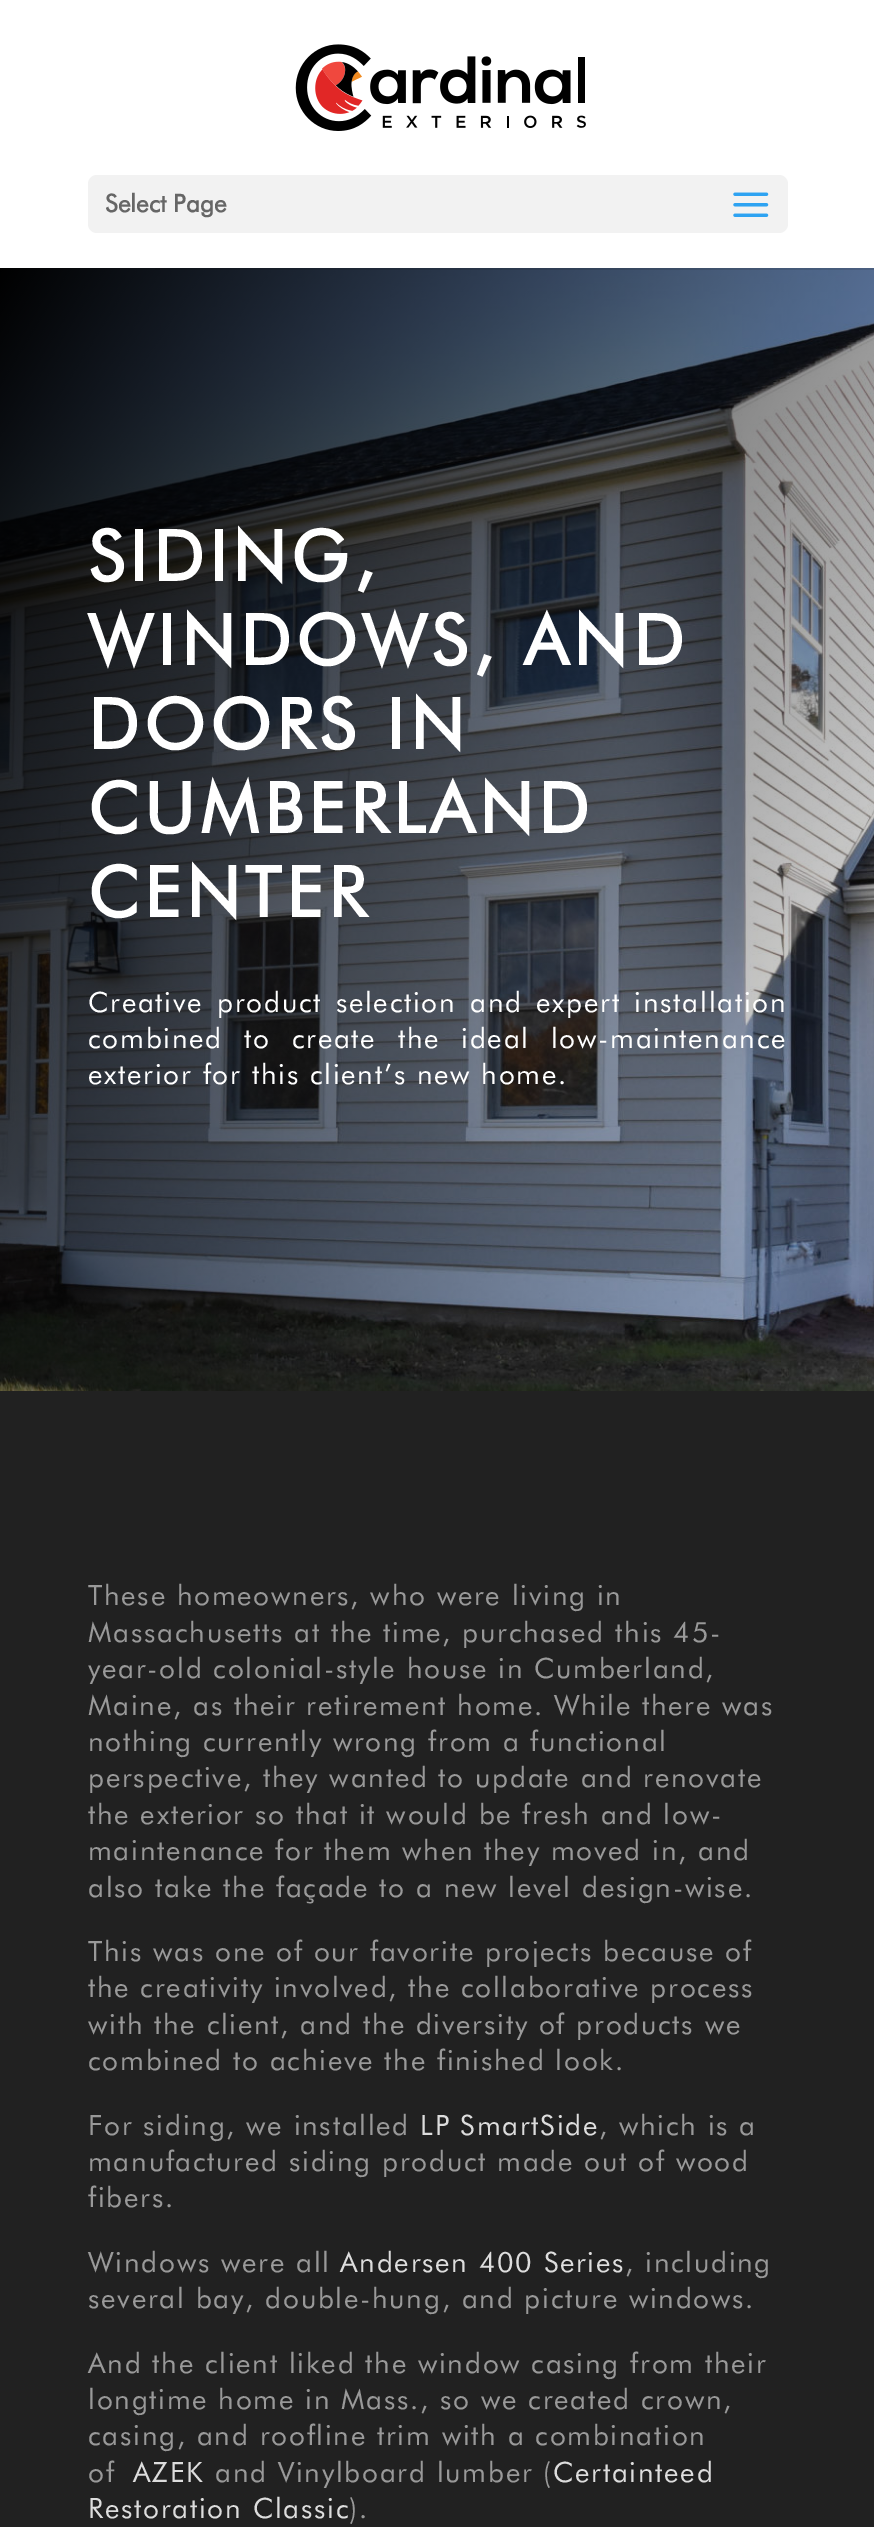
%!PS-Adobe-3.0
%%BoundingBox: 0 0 874 2527
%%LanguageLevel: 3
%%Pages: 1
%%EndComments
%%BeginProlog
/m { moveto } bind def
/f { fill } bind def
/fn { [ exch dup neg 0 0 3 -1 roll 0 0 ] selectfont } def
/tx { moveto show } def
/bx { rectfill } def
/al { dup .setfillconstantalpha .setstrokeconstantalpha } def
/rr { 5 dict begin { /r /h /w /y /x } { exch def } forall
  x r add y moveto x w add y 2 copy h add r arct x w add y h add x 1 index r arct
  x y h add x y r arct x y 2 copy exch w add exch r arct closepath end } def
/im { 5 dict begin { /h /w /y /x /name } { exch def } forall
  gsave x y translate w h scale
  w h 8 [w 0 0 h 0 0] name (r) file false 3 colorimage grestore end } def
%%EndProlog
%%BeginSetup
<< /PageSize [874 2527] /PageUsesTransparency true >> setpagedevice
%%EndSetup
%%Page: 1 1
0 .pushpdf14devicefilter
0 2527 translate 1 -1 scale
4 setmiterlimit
1 setgray
0 0 874 2527 bx
(image2.raw) 0 268 874 1123 im
0.1 al
0 setgray
155 268 719 2 bx
1 al
(image0.raw) 295 44 291 87 im
0.949 setgray
88 175 700 58 9 rr f
/Futura-Bold 24.5 fn
0.4 setgray
(Select Page) 105 212 tx
(image1.raw) 733 192 36 25 im
/Futura-Bold 70 fn
1 setgray
88 581 m 5.25 0 (SIDING,) ashow
88 665 m 5.25 0 (WINDOWS, AND) ashow
88 749 m 5.25 0 (DOORS IN) ashow
88 833 m 5.25 0 (CUMBERLAND) ashow
88 917 m 5.25 0 (CENTER) ashow
/Futura-Regular 28 fn
88 1012 m 3.5 0 32 1.75 0 (Creative product selection and expert installation) awidthshow
88 1048 m 11 0 32 1.75 0 (combined to create the ideal low-maintenance) awidthshow
88 1084 m 1.75 0 (exterior for this client’s new home.) ashow
0.129 setgray
0 1391 874 1136 bx
0.6 setgray
88 1605 m 1.75 0 (These homeowners, who were living in) ashow
88 1642 m 1.75 0 (Massachusetts at the time, purchased this 45-) ashow
88 1678 m 1.75 0 (year-old colonial-style house in Cumberland,) ashow
88 1715 m 1.75 0 (Maine, as their retirement home. While there was) ashow
88 1751 m 1.75 0 (nothing currently wrong from a functional) ashow
88 1787 m 1.75 0 (perspective, they wanted to update and renovate) ashow
88 1824 m 1.75 0 (the exterior so that it would be fresh and low-) ashow
88 1860 m 1.75 0 (maintenance for them when they moved in, and) ashow
88 1897 m 1.75 0 (also take the façade to a new level design-wise.) ashow
88 1961 m 1.75 0 (This was one of our favorite projects because of) ashow
88 1997 m 1.75 0 (the creativity involved, the collaborative process) ashow
88 2034 m 1.75 0 (with the client, and the diversity of products we) ashow
88 2070 m 1.75 0 (combined to achieve the finished look.) ashow
88 2135 m 1.75 0 (For siding, we installed) ashow
0.867 setgray
420 2135 m 1.75 0 (LP SmartSide) ashow
0.6 setgray
599 2135 m 1.75 0 (, which is a) ashow
88 2171 m 1.75 0 (manufactured siding product made out of wood) ashow
88 2207 m 1.75 0 (fibers.) ashow
88 2272 m 1.75 0 (Windows were all) ashow
0.867 setgray
340 2272 m 1.75 0 (Andersen 400 Series) ashow
0.6 setgray
625 2272 m 1.75 0 (, including) ashow
88 2308 m 1.75 0 (several bay, double-hung, and picture windows.) ashow
88 2373 m 1.75 0 (And the client liked the window casing from their) ashow
88 2409 m 1.75 0 (longtime home in Mass., so we created crown,) ashow
88 2445 m 1.75 0 (casing, and roofline trim with a combination) ashow
88 2482 m 1.75 0 (of) ashow
0.867 setgray
133 2482 m 1.75 0 (AZEK) ashow
0.6 setgray
215 2482 m 1.75 0 (and Vinylboard lumber \() ashow
0.867 setgray
553 2482 m 1.75 0 (Certainteed) ashow
88 2518 m 1.75 0 (Restoration Classic) ashow
0.6 setgray
349 2518 m 1.75 0 (\).) ashow
.poppdf14devicefilter showpage
%%EOF
